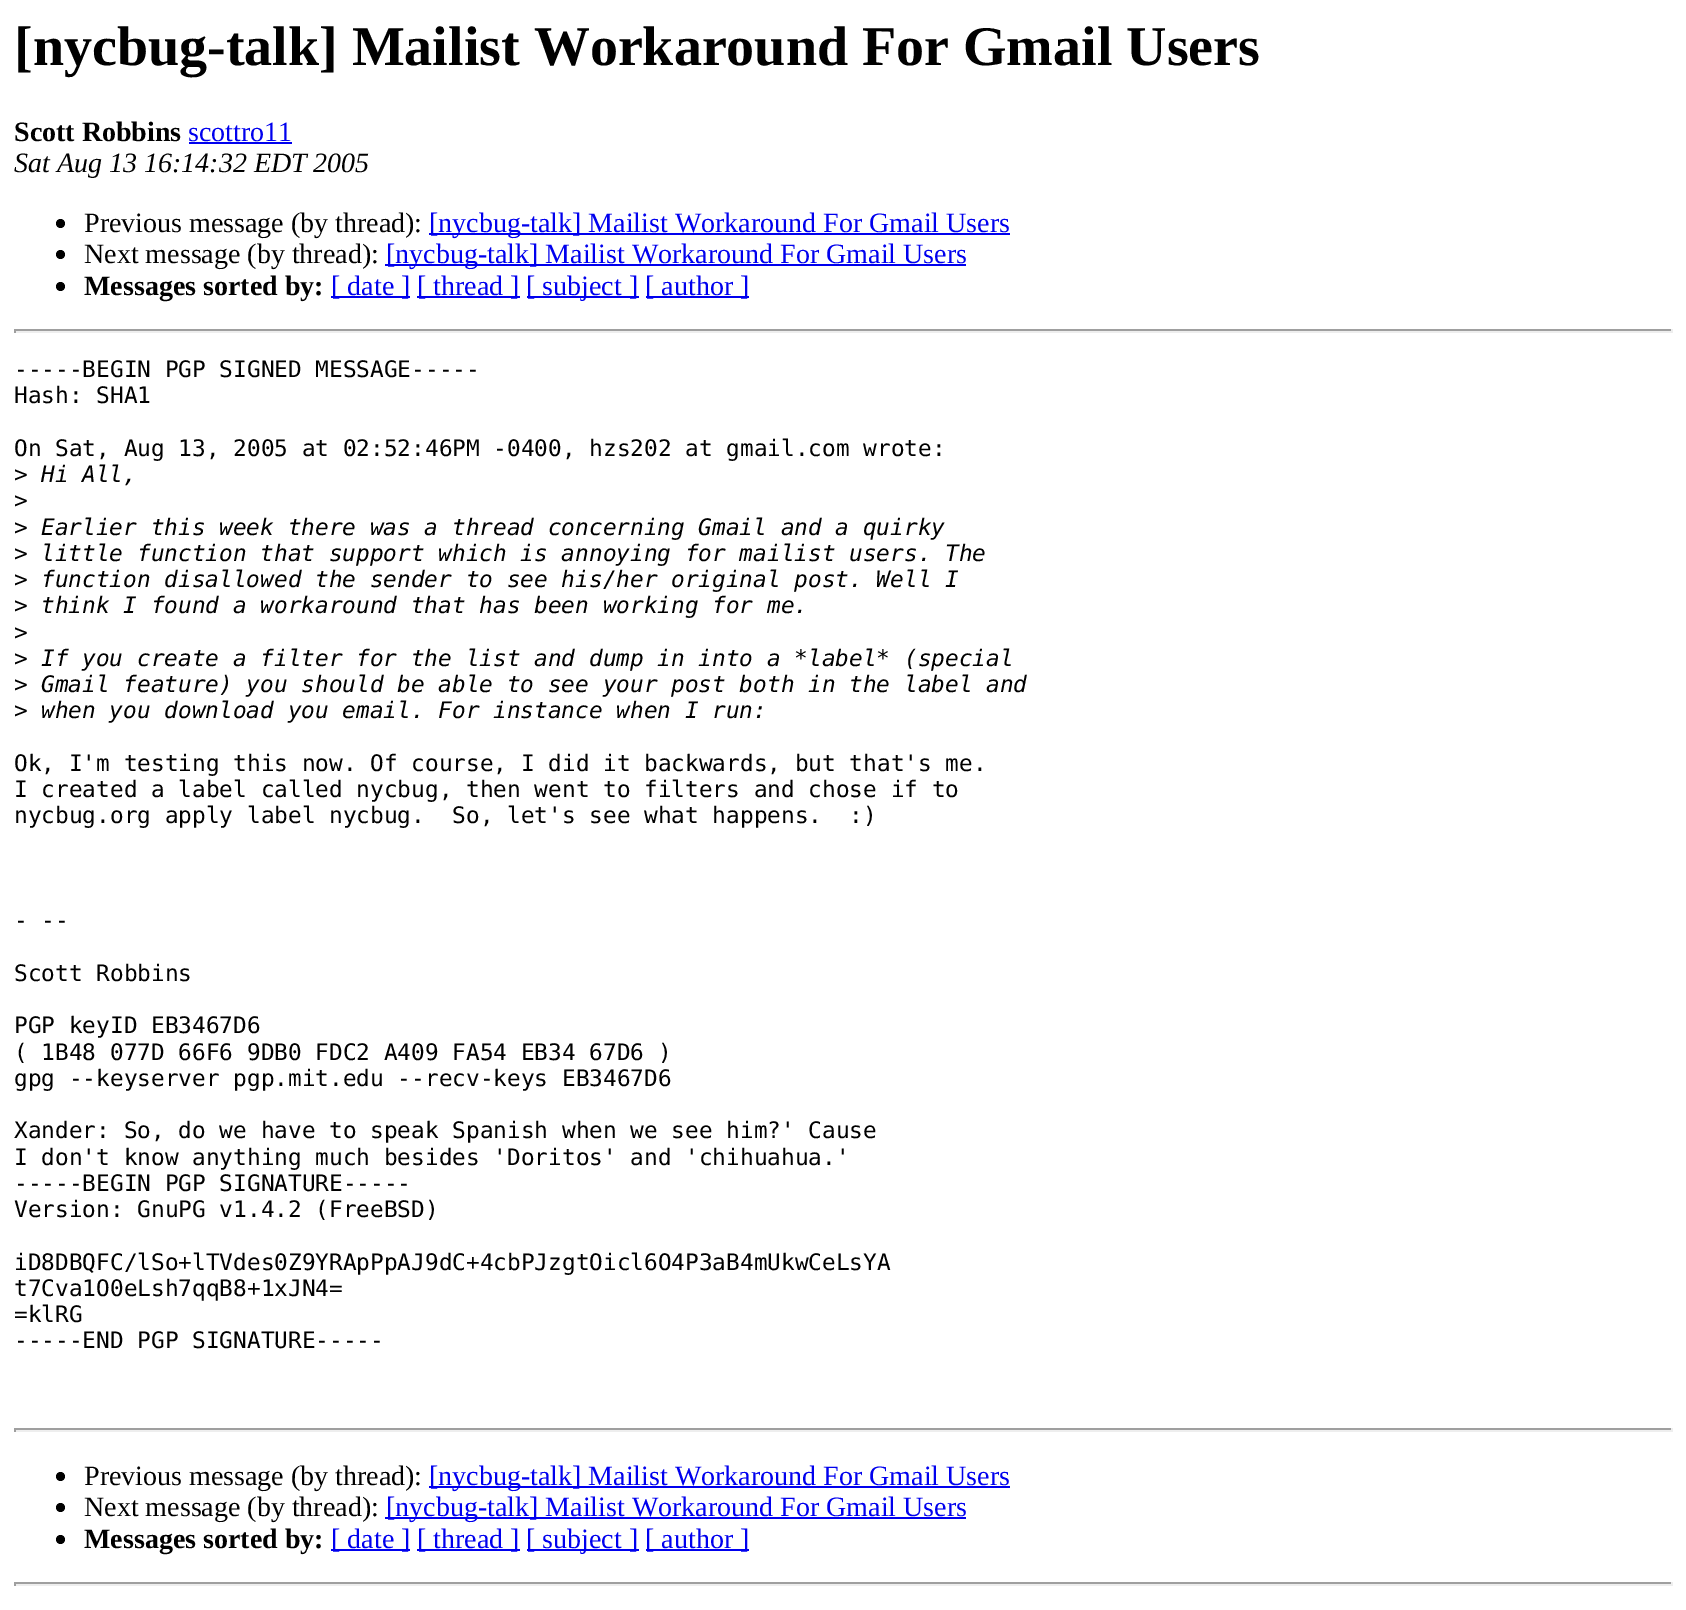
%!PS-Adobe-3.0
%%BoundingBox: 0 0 1686 1610
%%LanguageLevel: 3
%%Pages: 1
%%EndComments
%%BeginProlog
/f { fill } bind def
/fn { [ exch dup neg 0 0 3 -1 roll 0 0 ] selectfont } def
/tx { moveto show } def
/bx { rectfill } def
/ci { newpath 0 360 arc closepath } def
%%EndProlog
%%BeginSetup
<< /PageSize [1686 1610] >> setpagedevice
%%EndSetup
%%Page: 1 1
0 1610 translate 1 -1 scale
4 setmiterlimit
1 setgray
0 0 1686 1610 bx
/LiberationSerif-Bold 56 fn
0 setgray
([nycbug-talk] Mailist Workaround For Gmail Users) 14 65 tx
/LiberationSerif-Bold 28 fn
(Scott Robbins) 14 141 tx
/LiberationSerif-Regular 28 fn
0 0 0.933 setrgbcolor
(scottro11) 188 141 tx
189 142 103 2 bx
/LiberationSerif-Italic 28 fn
0 setgray
(Sat Aug 13 16:14:32 EDT 2005) 14 172 tx
60.5 223.5 4.5 ci f
/LiberationSerif-Regular 28 fn
(Previous message \(by thread\):) 84 232 tx
0 0 0.933 setrgbcolor
429 233 581 2 bx
([nycbug-talk] Mailist Workaround For Gmail Users) 429 232 tx
0 setgray
60.5 254.5 4.5 ci f
(Next message \(by thread\):) 84 263 tx
0 0 0.933 setrgbcolor
385 264 581 2 bx
([nycbug-talk] Mailist Workaround For Gmail Users) 386 263 tx
0 setgray
60.5 286.5 4.5 ci f
/LiberationSerif-Bold 28 fn
(Messages sorted by:) 84 295 tx
0 0 0.933 setrgbcolor
331 296 79 2 bx
/LiberationSerif-Regular 28 fn
([ date ]) 331 295 tx
417 296 103 2 bx
([ thread ]) 417 295 tx
527 296 112 2 bx
([ subject ]) 526 295 tx
646 296 103 2 bx
([ author ]) 645 295 tx
0.624 setgray
14 329 1659 2 bx
0.933 setgray
1671 329 2 4 bx
14 331 1659 2 bx
0.624 setgray
14 329 2 4 bx
/DejaVuSansMono-Regular 22.75 fn
0 setgray
(-----BEGIN PGP SIGNED MESSAGE-----) 14 377 tx
(Hash: SHA1) 14 403 tx
(On Sat, Aug 13, 2005 at 02:52:46PM -0400, hzs202 at gmail.com wrote:) 14 456 tx
(>) 14 482 tx
/DejaVuSansMono-Italic 22.75 fn
(Hi All,) 41 482 tx
/DejaVuSansMono-Regular 22.75 fn
(>) 14 508 tx
(>) 14 535 tx
/DejaVuSansMono-Italic 22.75 fn
(Earlier this week there was a thread concerning Gmail and a quirky) 41 535 tx
/DejaVuSansMono-Regular 22.75 fn
(>) 14 561 tx
/DejaVuSansMono-Italic 22.75 fn
(little function that support which is annoying for mailist users. The) 41 561 tx
/DejaVuSansMono-Regular 22.75 fn
(>) 14 587 tx
/DejaVuSansMono-Italic 22.75 fn
(function disallowed the sender to see his/her original post. Well I) 41 587 tx
/DejaVuSansMono-Regular 22.75 fn
(>) 14 613 tx
/DejaVuSansMono-Italic 22.75 fn
(think I found a workaround that has been working for me.) 41 613 tx
/DejaVuSansMono-Regular 22.75 fn
(>) 14 640 tx
(>) 14 666 tx
/DejaVuSansMono-Italic 22.75 fn
(If you create a filter for the list and dump in into a *label* \(special) 41 666 tx
/DejaVuSansMono-Regular 22.75 fn
(>) 14 692 tx
/DejaVuSansMono-Italic 22.75 fn
(Gmail feature\) you should be able to see your post both in the label and) 41 692 tx
/DejaVuSansMono-Regular 22.75 fn
(>) 14 718 tx
/DejaVuSansMono-Italic 22.75 fn
(when you download you email. For instance when I run:) 41 718 tx
/DejaVuSansMono-Regular 22.75 fn
(Ok, I'm testing this now. Of course, I did it backwards, but that's me.) 14 771 tx
(I created a label called nycbug, then went to filters and chose if to) 14 797 tx
(nycbug.org apply label nycbug.  So, let's see what happens.  :\)) 14 823 tx
(- --) 14 928 tx
(Scott Robbins) 14 981 tx
(PGP keyID EB3467D6) 14 1033 tx
(\( 1B48 077D 66F6 9DB0 FDC2 A409 FA54 EB34 67D6 \)) 14 1060 tx
(gpg --keyserver pgp.mit.edu --recv-keys EB3467D6) 14 1086 tx
(Xander: So, do we have to speak Spanish when we see him?' Cause) 14 1138 tx
(I don't know anything much besides 'Doritos' and 'chihuahua.') 14 1165 tx
(-----BEGIN PGP SIGNATURE-----) 14 1191 tx
(Version: GnuPG v1.4.2 \(FreeBSD\)) 14 1217 tx
(iD8DBQFC/lSo+lTVdes0Z9YRApPpAJ9dC+4cbPJzgtOicl6O4P3aB4mUkwCeLsYA) 14 1270 tx
(t7Cva1O0eLsh7qqB8+1xJN4=) 14 1296 tx
(=klRG) 14 1322 tx
(-----END PGP SIGNATURE-----) 14 1348 tx
0.624 setgray
14 1428 1659 2 bx
0.933 setgray
1671 1428 2 4 bx
14 1430 1659 2 bx
0.624 setgray
14 1428 2 4 bx
0 setgray
60.5 1476.5 4.5 ci f
/LiberationSerif-Regular 28 fn
(Previous message \(by thread\):) 84 1485 tx
0 0 0.933 setrgbcolor
429 1486 581 2 bx
([nycbug-talk] Mailist Workaround For Gmail Users) 429 1485 tx
0 setgray
60.5 1507.5 4.5 ci f
(Next message \(by thread\):) 84 1516 tx
0 0 0.933 setrgbcolor
385 1517 581 2 bx
([nycbug-talk] Mailist Workaround For Gmail Users) 386 1516 tx
0 setgray
60.5 1539.5 4.5 ci f
/LiberationSerif-Bold 28 fn
(Messages sorted by:) 84 1548 tx
0 0 0.933 setrgbcolor
331 1549 79 2 bx
/LiberationSerif-Regular 28 fn
([ date ]) 331 1548 tx
417 1549 103 2 bx
([ thread ]) 417 1548 tx
527 1549 112 2 bx
([ subject ]) 526 1548 tx
646 1549 103 2 bx
([ author ]) 645 1548 tx
0.624 setgray
14 1582 1659 2 bx
0.933 setgray
1671 1582 2 4 bx
14 1584 1659 2 bx
0.624 setgray
14 1582 2 4 bx
showpage
%%EOF
